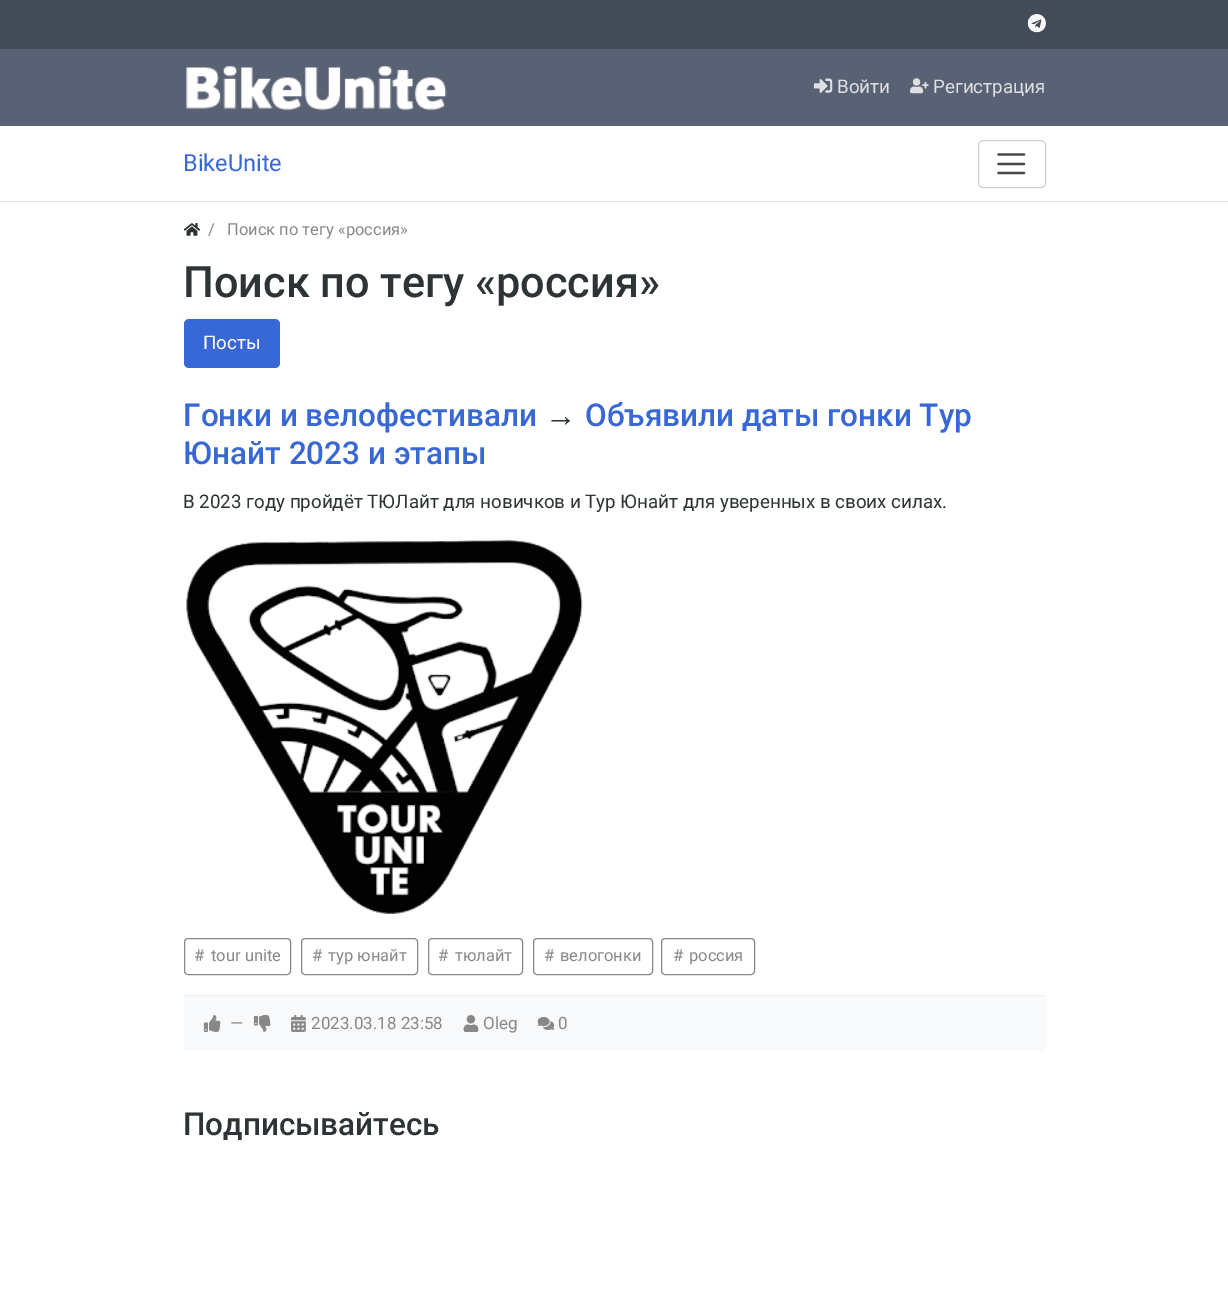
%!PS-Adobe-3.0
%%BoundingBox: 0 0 1228 1290
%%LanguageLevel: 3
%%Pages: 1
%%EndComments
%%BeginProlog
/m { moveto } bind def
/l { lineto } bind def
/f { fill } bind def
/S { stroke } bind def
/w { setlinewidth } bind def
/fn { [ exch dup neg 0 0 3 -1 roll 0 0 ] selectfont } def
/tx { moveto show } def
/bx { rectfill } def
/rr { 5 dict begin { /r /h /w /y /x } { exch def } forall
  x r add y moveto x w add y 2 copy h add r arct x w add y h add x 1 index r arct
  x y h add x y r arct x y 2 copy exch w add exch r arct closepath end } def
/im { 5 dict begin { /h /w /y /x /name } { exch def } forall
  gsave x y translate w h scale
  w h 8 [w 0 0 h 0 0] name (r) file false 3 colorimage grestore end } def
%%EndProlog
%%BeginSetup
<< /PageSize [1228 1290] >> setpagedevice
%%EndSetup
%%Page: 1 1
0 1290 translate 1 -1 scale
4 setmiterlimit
1 setgray
0 0 1228 1290 bx
0.263 0.29 0.345 setrgbcolor
0 0 1228 49 bx
(image0.raw) 1027 14 19 19 im
0.349 0.384 0.459 setrgbcolor
0 49 1228 77 bx
(image1.raw) 186 66 261 45 im
(image2.raw) 813 78 20 15 im
/Roboto-Regular 18.75 fn
0.871 0.878 0.89 setrgbcolor
(Войти) 837 93 tx
(image3.raw) 910 78 19 16 im
(Регистрация) 933 93 tx
0.871 0.886 0.902 setrgbcolor
0 201 1228 1 bx
/Roboto-Regular 23.5 fn
0.22 0.404 0.839 setrgbcolor
(BikeUnite) 183 171 tx
0.82 setgray
978.5 140.5 67 47 4.5 rr S
0.282 setgray
2.3 w
1 setlinecap
998.5 154.5 m 1024 154.5 l 998.5 164 m 1024 164 l 998.5 173 m 1024 173 l S
(image4.raw) 184 223 16 13 im
/Roboto-Regular 16.5 fn
0.533 setgray
(/) 208 235 tx
(Поиск по тегу «россия») 227 235 tx
/Roboto-Medium 43.25 fn
0.176 0.204 0.212 setrgbcolor
(Поиск по тегу «россия») 183 297 tx
0.22 0.404 0.839 setrgbcolor
184 319 96 49 5 rr f
/Roboto-Regular 18.75 fn
1 setgray
(Посты) 203 349 tx
/Roboto-Medium 31.5 fn
0.22 0.404 0.839 setrgbcolor
(Гонки и велофестивали) 183 426 tx
/LiberationSans-Regular 31.5 fn
0.176 0.204 0.212 setrgbcolor
(→) 545 426 tx
/Roboto-Medium 31.5 fn
0.22 0.404 0.839 setrgbcolor
(Объявили даты гонки Тур) 585 426 tx
(Юнайт 2023 и этапы) 183 464 tx
/Roboto-Regular 18.75 fn
0.176 0.204 0.212 setrgbcolor
(В 2023 году пройдёт ТЮЛайт для новичков и Тур Юнайт для уверенных в своих силах.) 183 508 tx
(image5.raw) 186 539 397 375 im
0.533 setgray
1 w
0 setlinecap
184.5 938.5 106 36 3.5 rr S
/Roboto-Regular 16.5 fn
(#) 194 961 tx
(tour unite) 211 961 tx
301.5 938.5 116 36 3.5 rr S
(#) 312 961 tx
(тур юнайт) 328 961 tx
428.5 938.5 94 36 3.5 rr S
(#) 438 961 tx
(тюлайт) 455 961 tx
533.5 938.5 119 36 3.5 rr S
(#) 544 961 tx
(велогонки) 560 961 tx
661.5 938.5 93 36 3.5 rr S
(#) 673 961 tx
(россия) 689 961 tx
0.973 0.976 0.98 setrgbcolor
184 996 862 55 bx
0.933 setgray
184 995 862 1 bx
(image6.raw) 203 1015 18 17 im
/Roboto-Regular 17 fn
0.533 setgray
(—) 230 1029 tx
(image7.raw) 253 1015 18 17 im
(image8.raw) 291 1015 15 17 im
(2023.03.18 23:58) 311 1029 tx
(image9.raw) 463 1015 16 17 im
(Oleg) 483 1029 tx
(image10.raw) 537 1017 18 13 im
(0) 558 1029 tx
/Roboto-Medium 31.5 fn
0.176 0.204 0.212 setrgbcolor
(Подписывайтесь) 183 1135 tx
showpage
%%EOF
